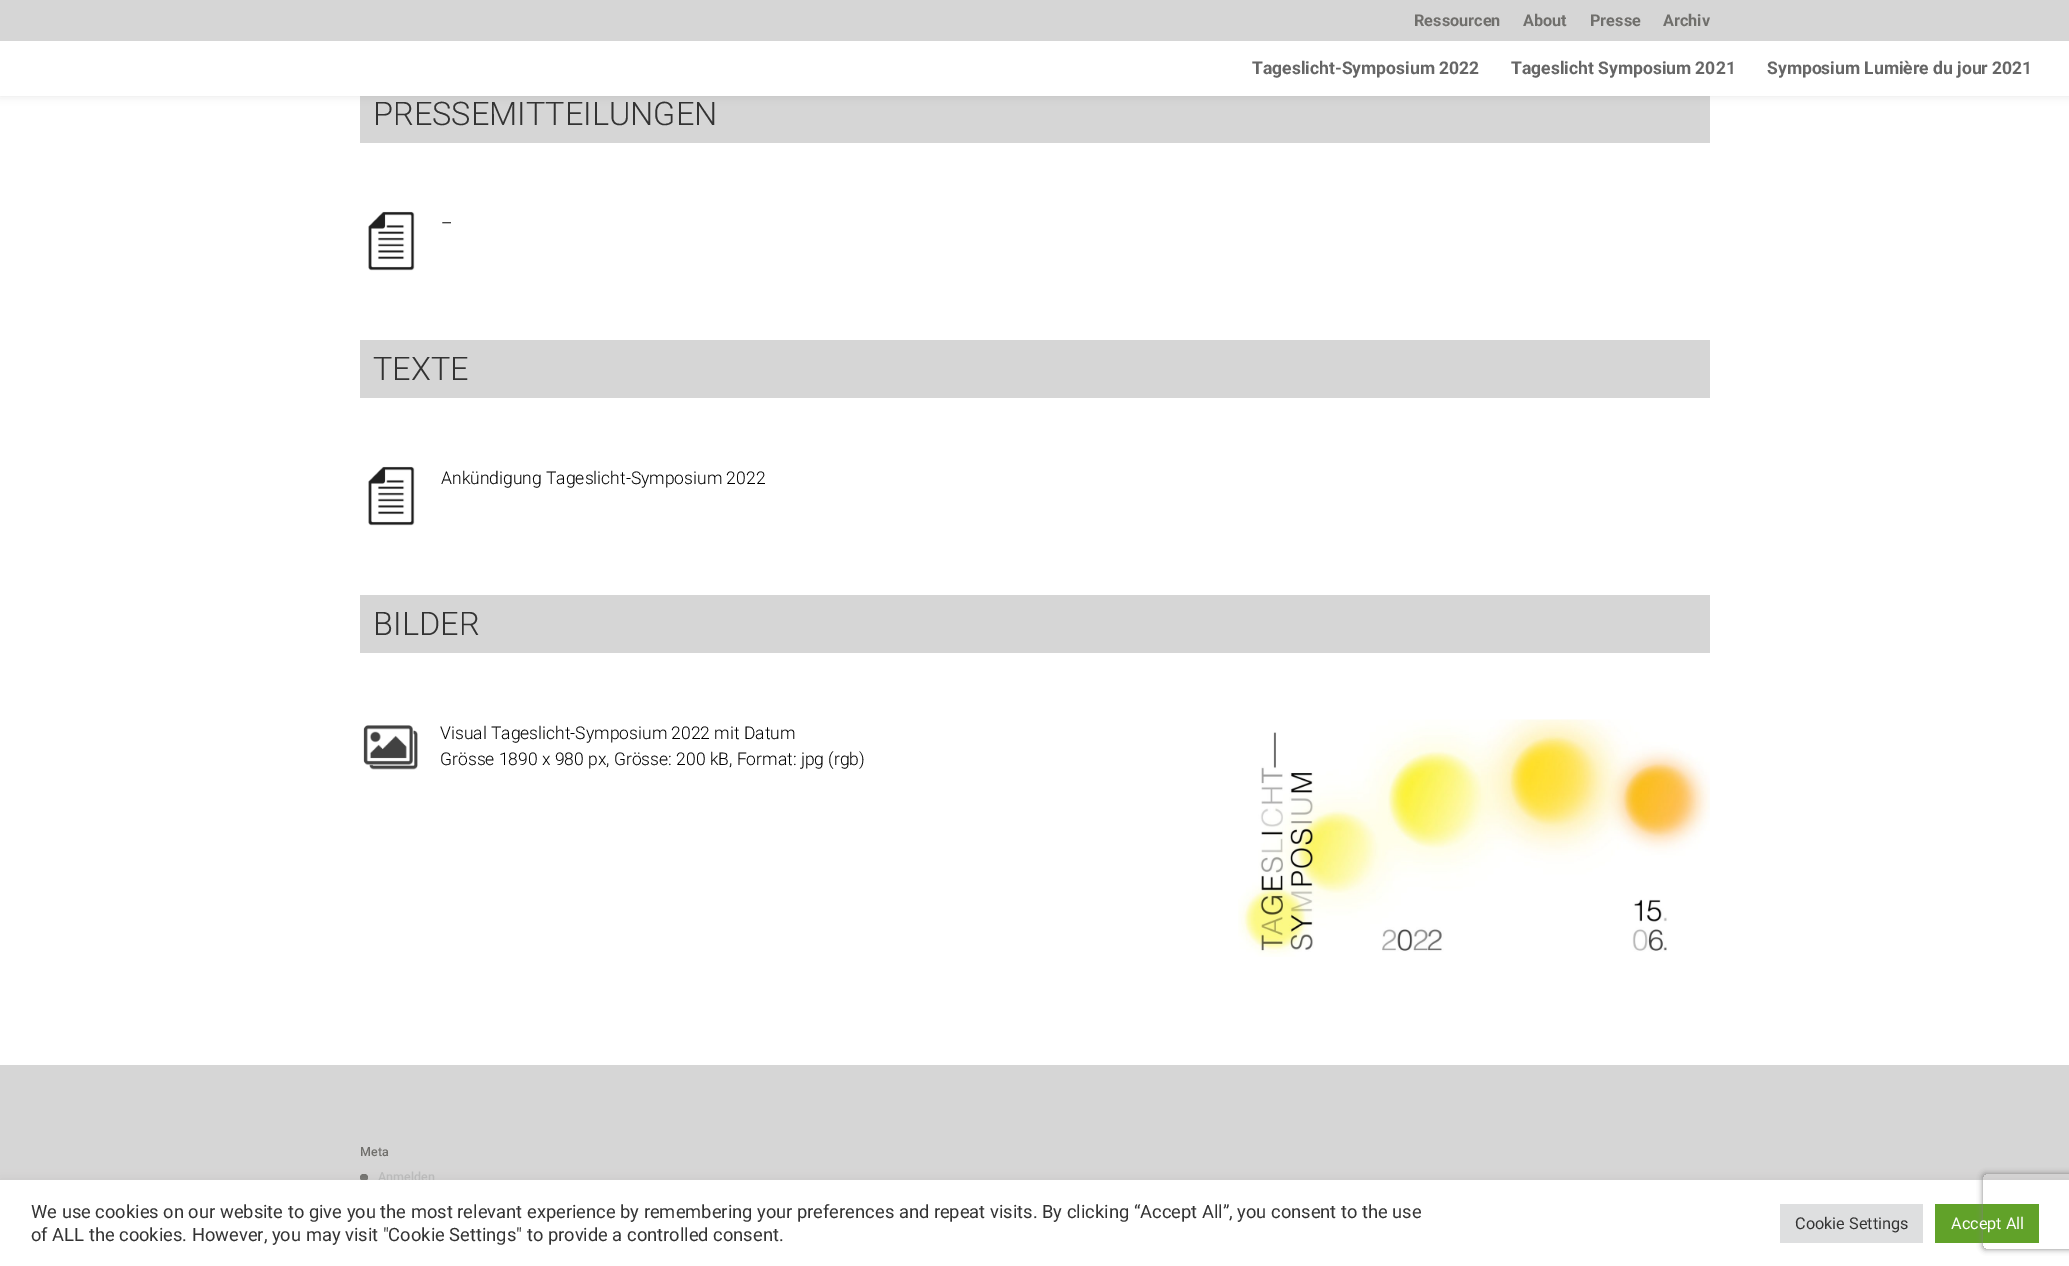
%!PS-Adobe-3.0
%%BoundingBox: 0 0 2069 1266
%%LanguageLevel: 3
%%Pages: 1
%%EndComments
%%BeginProlog
/m { moveto } bind def
/l { lineto } bind def
/c { curveto } bind def
/h { closepath } bind def
/f { fill } bind def
/q { gsave } bind def
/Q { grestore } bind def
/fn { [ exch dup neg 0 0 3 -1 roll 0 0 ] selectfont } def
/tx { moveto show } def
/bx { rectfill } def
/al { dup .setfillconstantalpha .setstrokeconstantalpha } def
/rr { 5 dict begin { /r /h /w /y /x } { exch def } forall
  x r add y moveto x w add y 2 copy h add r arct x w add y h add x 1 index r arct
  x y h add x y r arct x y 2 copy exch w add exch r arct closepath end } def
/sh { 12 dict begin { /a /b /q /h /w /y /x } { exch def } forall gsave /was 0 def
  9 -2 -9 { dup b mul 4 div /e exch def 1 sub .425 mul 2.718 exch exp 1 add a .99 .min exch div /now exch def
    1 1 now sub 1 was sub div sub al /was now def
    w h .min e 2 mul add 0 gt { x e sub y e sub w e 2 mul add h e 2 mul add
      q e add b .6 mul add w h .min 2 div e add .min 0 .max rr fill } if } for grestore end } def
/im { 5 dict begin { /h /w /y /x /name } { exch def } forall
  gsave x y translate w h scale
  w h 8 [w 0 0 h 0 0] name (r) file false 3 colorimage grestore end } def
%%EndProlog
%%BeginSetup
<< /PageSize [2069 1266] /PageUsesTransparency true >> setpagedevice
%%EndSetup
%%Page: 1 1
0 .pushpdf14devicefilter
0 1266 translate 1 -1 scale
4 setmiterlimit
1 setgray
0 0 2069 1266 bx
0.839 setgray
360 96 1350 47 bx
0 setgray
0 41 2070 55 0 4.5 0.1 sh
0.839 setgray
0 0 2069 41 bx
/Roboto-Bold 16.25 fn
0.439 0.435 0.424 setrgbcolor
(Ressourcen) 1414 26 tx
(About) 1523 26 tx
(Presse) 1590 26 tx
(Archiv) 1663 26 tx
1 setgray
0 41 2069 55 bx
/Roboto-Bold 17.5 fn
0.4 setgray
(Tageslicht-Symposium 2022) 1252 74 tx
(Tageslicht Symposium 2021) 1511 74 tx
(Symposium Lumière du jour 2021) 1767 74 tx
/Roboto-Light 32.5 fn
0.2 setgray
(PRESSEMITTEILUNGEN) 373 125 tx
(image0.raw) 368 211 47 60 im
/Roboto-Light 17.5 fn
0 setgray
(–) 441 229 tx
0.839 setgray
360 340 1350 58 bx
/Roboto-Light 32.5 fn
0.2 setgray
(TEXTE) 373 380 tx
(image1.raw) 368 466 47 60 im
/Roboto-Light 17.5 fn
0 setgray
(Ankündigung Tageslicht-Symposium 2022) 441 484 tx
0.839 setgray
360 595 1350 58 bx
/Roboto-Light 32.5 fn
0.2 setgray
(BILDER) 373 635 tx
(image2.raw) 363 725 55 45 im
/Roboto-Light 17.5 fn
0 setgray
(Visual Tageslicht-Symposium 2022 mit Datum) 440 739 tx
(Grösse 1890 x 980 px, Grösse: 200 kB, Format: jpg \(rgb\)) 440 765 tx
(image3.raw) 1238 719 472 238 im
0.839 setgray
0 1065 2069 115 bx
/Roboto-Medium 12.5 fn
0.439 0.435 0.424 setrgbcolor
(Meta) 360 1156 tx
360 1174 8 7 3.5 rr f
0.733 setgray
(Anmelden) 378 1181 tx
0.675 0.671 0.671 setrgbcolor
0 1179 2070 86 0 6 0.3 sh
1 setgray
0 1180 2069 86 bx
0.38 0.635 0.161 setrgbcolor
1935 1204 104 39 bx
q
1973 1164 m 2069 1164 l 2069 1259 l 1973 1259 l h 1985.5 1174 m 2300.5 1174 l 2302 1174 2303 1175 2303 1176.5 c 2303 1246.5 l 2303 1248 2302 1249 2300.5 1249 c 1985.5 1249 l 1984 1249 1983 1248 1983 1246.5 c 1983 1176.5 l 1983 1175 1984 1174 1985.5 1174 c h eoclip newpath
0.502 setgray
1983 1174 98 75 2.5 3 1 sh
Q
/Roboto-Regular 18.33 fn
0.2 setgray
(We use cookies on our website to give you the most relevant experience by remembering your preferences and repeat visits. By clicking “Accept All”, you consent to the use) 31 1218 tx
(of ALL the cookies. However, you may visit "Cookie Settings" to provide a controlled consent.) 31 1241 tx
0.871 0.875 0.878 setrgbcolor
1780 1204 143 39 bx
/Roboto-Regular 16.25 fn
0.2 setgray
(Cookie Settings) 1795 1229 tx
1 setgray
(Accept All) 1951 1229 tx
.poppdf14devicefilter showpage
%%EOF
